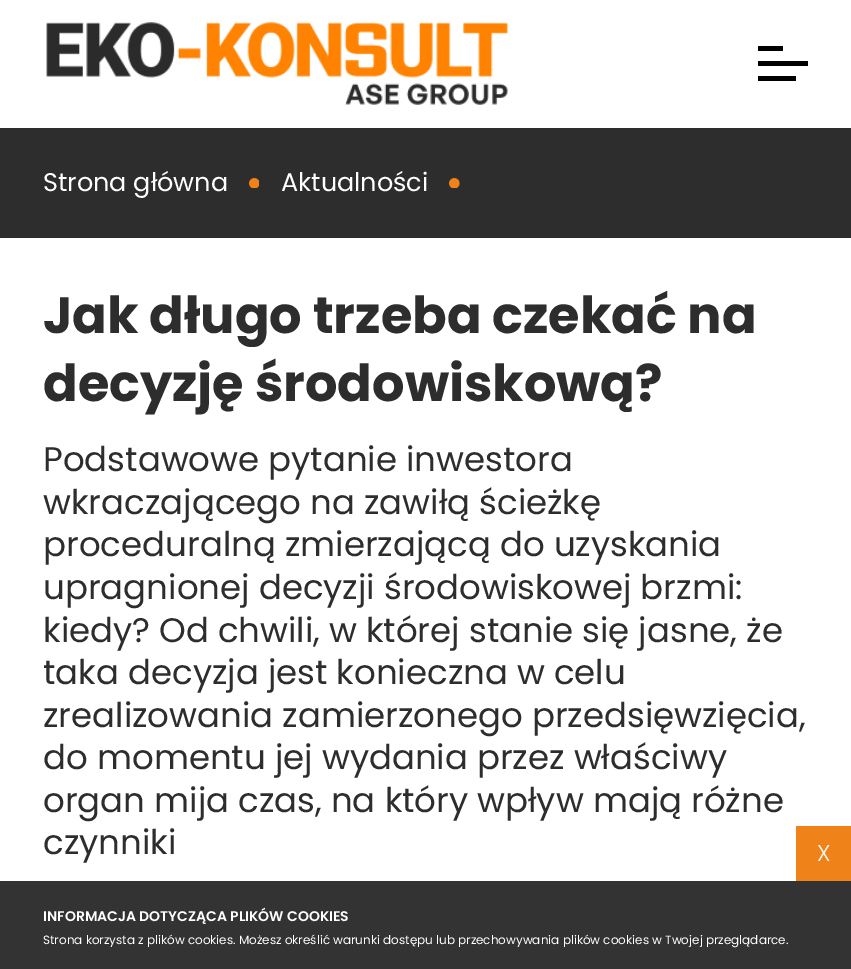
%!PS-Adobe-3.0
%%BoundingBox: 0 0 851 969
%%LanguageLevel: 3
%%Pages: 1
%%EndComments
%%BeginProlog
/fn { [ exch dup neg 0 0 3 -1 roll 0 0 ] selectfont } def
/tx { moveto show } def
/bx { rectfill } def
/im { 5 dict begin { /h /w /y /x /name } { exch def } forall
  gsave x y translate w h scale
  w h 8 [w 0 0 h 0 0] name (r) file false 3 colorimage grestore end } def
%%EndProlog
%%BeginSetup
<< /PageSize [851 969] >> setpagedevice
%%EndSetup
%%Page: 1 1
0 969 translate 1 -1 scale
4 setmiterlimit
1 setgray
0 0 851 969 bx
(image0.raw) 46 22 462 83 im
0 setgray
758 46 25 5 bx
758 61 50 5 bx
758 76 38 5 bx
0.176 setgray
0 128 851 110 bx
/Poppins-Regular 25.5 fn
1 setgray
(Strona główna) 43 191 tx
(image1.raw) 249 178 10 10 im
(Aktualności) 281 191 tx
(image2.raw) 449 178 11 10 im
/Poppins-Bold 51 fn
0.176 setgray
(Jak długo trzeba czekać na) 43 333 tx
(decyzję środowiskową?) 43 401 tx
/Poppins-Regular 34 fn
(Podstawowe pytanie inwestora) 43 471 tx
(wkraczającego na zawiłą ścieżkę) 43 514 tx
(proceduralną zmierzającą do uzyskania) 43 556 tx
(upragnionej decyzji środowiskowej brzmi:) 43 599 tx
(kiedy? Od chwili, w której stanie się jasne, że) 43 642 tx
(taka decyzja jest konieczna w celu) 43 684 tx
(zrealizowania zamierzonego przedsięwzięcia,) 43 727 tx
(do momentu jej wydania przez właściwy) 43 769 tx
(organ mija czas, na który wpływ mają różne) 43 812 tx
(czynniki) 43 854 tx
0.2 setgray
0 881 851 88 bx
0.941 0.51 0.102 setrgbcolor
796 826 55 55 bx
/Poppins-Light 23 fn
1 setgray
(X) 817 861 tx
/Poppins-SemiBold 14 fn
(INFORMACJA DOTYCZĄCA PLIKÓW COOKIES) 43 921 tx
/Poppins-Regular 12 fn
(Strona korzysta z plików cookies. Możesz określić warunki dostępu lub przechowywania plików cookies w Twojej przeglądarce.) 43 944 tx
showpage
%%EOF
